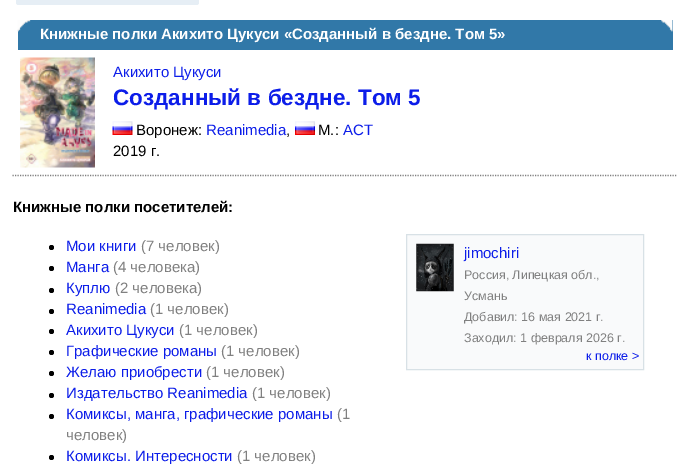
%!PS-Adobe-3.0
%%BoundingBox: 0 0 690 476
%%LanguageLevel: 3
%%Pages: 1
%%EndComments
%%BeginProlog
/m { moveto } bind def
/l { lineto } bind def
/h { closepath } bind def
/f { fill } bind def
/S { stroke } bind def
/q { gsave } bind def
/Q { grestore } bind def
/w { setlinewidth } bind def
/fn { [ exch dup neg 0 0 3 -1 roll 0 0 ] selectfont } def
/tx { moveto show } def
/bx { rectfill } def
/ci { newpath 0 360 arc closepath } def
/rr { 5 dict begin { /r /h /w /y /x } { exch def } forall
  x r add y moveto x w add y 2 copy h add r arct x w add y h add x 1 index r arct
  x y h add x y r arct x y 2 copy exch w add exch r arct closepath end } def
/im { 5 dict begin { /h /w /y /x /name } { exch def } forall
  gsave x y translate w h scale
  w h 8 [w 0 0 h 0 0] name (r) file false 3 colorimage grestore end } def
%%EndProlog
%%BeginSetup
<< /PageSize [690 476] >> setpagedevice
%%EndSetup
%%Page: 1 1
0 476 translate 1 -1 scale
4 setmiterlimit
1 setgray
0 0 690 476 bx
0.902 0.933 0.961 setrgbcolor
16 -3 183 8 2.5 rr f
0.192 0.471 0.659 setrgbcolor
18 20 655 30 bx
(image0.raw) 17 20 14 12 im
/LiberationSans-Bold 15 fn
1 setgray
(Книжные полки Акихито Цукуси «Созданный в бездне. Том 5») 40 39 tx
(image1.raw) 661 20 12 12 im
0.502 setgray
1.2 w
[1.25 1.25] 0 setdash
12.5 175.5 m 677.5 175.5 l S
(image2.raw) 20 57 75 111 im
/LiberationSans-Regular 15 fn
0.047 0.114 0.914 setrgbcolor
(Акихито Цукуси) 113 77 tx
/LiberationSans-Bold 22.5 fn
(Созданный в бездне. Том 5) 113 105 tx
(image3.raw) 112 121 21 14 im
/LiberationSans-Regular 15 fn
0 setgray
(Воронеж:) 136 135 tx
0.047 0.114 0.914 setrgbcolor
(Reanimedia) 206 135 tx
0 setgray
(,) 286 135 tx
(image4.raw) 295 121 20 14 im
(М.:) 318 135 tx
0.047 0.114 0.914 setrgbcolor
(АСТ) 343 135 tx
0 setgray
(2019 г.) 113 156 tx
/LiberationSans-Bold 15 fn
(Книжные полки посетителей:) 13 212 tx
51.5 247.5 2.5 ci f
/LiberationSans-Regular 15 fn
0.047 0.114 0.914 setrgbcolor
(Мои книги) 66 251 tx
0.502 setgray
(\(7 человек\)) 141 251 tx
0 setgray
51.5 268.5 2.5 ci f
0.047 0.114 0.914 setrgbcolor
(Манга) 66 272 tx
0.502 setgray
(\(4 человека\)) 113 272 tx
0 setgray
51.5 290.5 2.5 ci f
0.047 0.114 0.914 setrgbcolor
(Куплю) 66 293 tx
0.502 setgray
(\(2 человека\)) 115 293 tx
0 setgray
51.5 311.5 2.5 ci f
0.047 0.114 0.914 setrgbcolor
(Reanimedia) 66 314 tx
0.502 setgray
(\(1 человек\)) 150 314 tx
0 setgray
51.5 331.5 2.5 ci f
0.047 0.114 0.914 setrgbcolor
(Акихито Цукуси) 66 335 tx
0.502 setgray
(\(1 человек\)) 179 335 tx
0 setgray
51.5 352.5 2.5 ci f
0.047 0.114 0.914 setrgbcolor
(Графические романы) 66 356 tx
0.502 setgray
(\(1 человек\)) 221 356 tx
0 setgray
51.5 373.5 2.5 ci f
0.047 0.114 0.914 setrgbcolor
(Желаю приобрести) 66 377 tx
0.502 setgray
(\(1 человек\)) 206 377 tx
0 setgray
51.5 395.5 2.5 ci f
0.047 0.114 0.914 setrgbcolor
(Издательство Reanimedia) 66 398 tx
0.502 setgray
(\(1 человек\)) 252 398 tx
0 setgray
51.5 416.5 2.5 ci f
0.047 0.114 0.914 setrgbcolor
(Комиксы, манга, графические романы) 66 419 tx
0.502 setgray
(\(1) 337 419 tx
(человек\)) 66 440 tx
0 setgray
51.5 457.5 2.5 ci f
0.047 0.114 0.914 setrgbcolor
(Комиксы. Интересности) 66 461 tx
0.502 setgray
(\(1 человек\)) 237 461 tx
0.976 0.98 0.984 setrgbcolor
406.5 234.5 m 643.5 234.5 l 643.5 369.5 l 406.5 369.5 l h q f Q
0.847 0.882 0.902 setrgbcolor
1 w
[] 0 setdash
S
(image5.raw) 416 243 38 49 im
0.047 0.114 0.914 setrgbcolor
(jimochiri) 464 258 tx
/LiberationSans-Regular 12.5 fn
0.502 setgray
(Россия, Липецкая обл.,) 464 279 tx
(Усмань) 464 300 tx
(Добавил: 16 мая 2021 г.) 464 321 tx
(Заходил: 1 февраля 2026 г.) 464 342 tx
0.047 0.114 0.914 setrgbcolor
(к полке >) 586 360 tx
showpage
%%EOF
